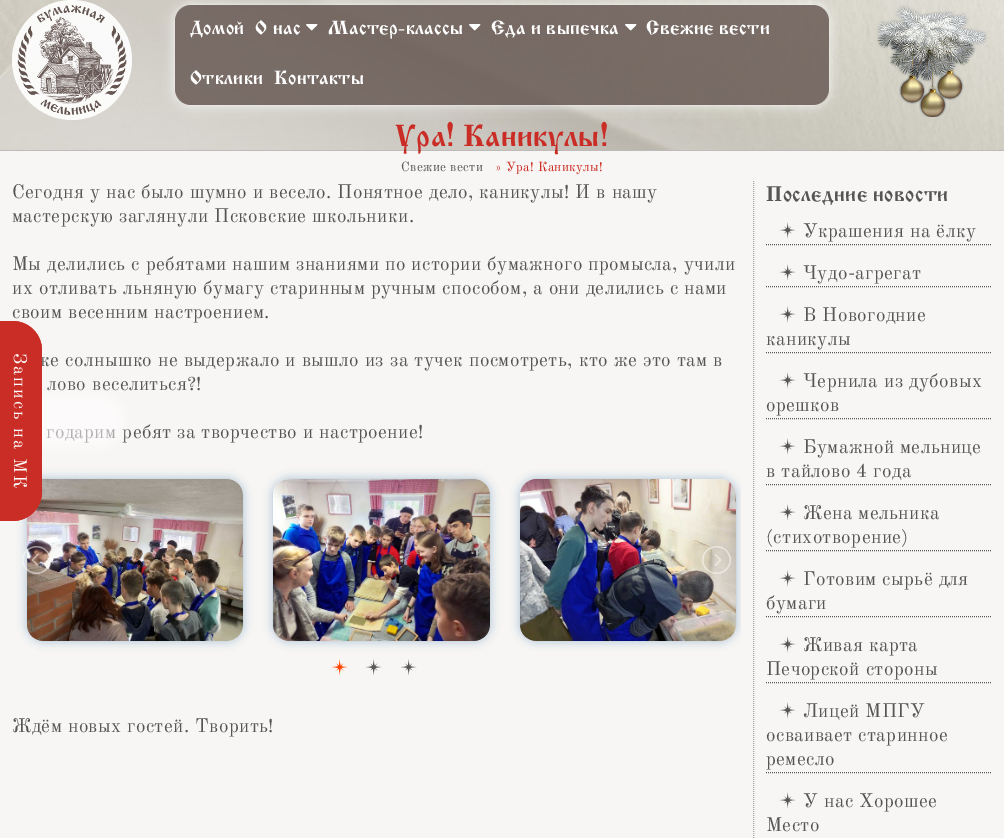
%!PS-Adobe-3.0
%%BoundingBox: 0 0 1004 838
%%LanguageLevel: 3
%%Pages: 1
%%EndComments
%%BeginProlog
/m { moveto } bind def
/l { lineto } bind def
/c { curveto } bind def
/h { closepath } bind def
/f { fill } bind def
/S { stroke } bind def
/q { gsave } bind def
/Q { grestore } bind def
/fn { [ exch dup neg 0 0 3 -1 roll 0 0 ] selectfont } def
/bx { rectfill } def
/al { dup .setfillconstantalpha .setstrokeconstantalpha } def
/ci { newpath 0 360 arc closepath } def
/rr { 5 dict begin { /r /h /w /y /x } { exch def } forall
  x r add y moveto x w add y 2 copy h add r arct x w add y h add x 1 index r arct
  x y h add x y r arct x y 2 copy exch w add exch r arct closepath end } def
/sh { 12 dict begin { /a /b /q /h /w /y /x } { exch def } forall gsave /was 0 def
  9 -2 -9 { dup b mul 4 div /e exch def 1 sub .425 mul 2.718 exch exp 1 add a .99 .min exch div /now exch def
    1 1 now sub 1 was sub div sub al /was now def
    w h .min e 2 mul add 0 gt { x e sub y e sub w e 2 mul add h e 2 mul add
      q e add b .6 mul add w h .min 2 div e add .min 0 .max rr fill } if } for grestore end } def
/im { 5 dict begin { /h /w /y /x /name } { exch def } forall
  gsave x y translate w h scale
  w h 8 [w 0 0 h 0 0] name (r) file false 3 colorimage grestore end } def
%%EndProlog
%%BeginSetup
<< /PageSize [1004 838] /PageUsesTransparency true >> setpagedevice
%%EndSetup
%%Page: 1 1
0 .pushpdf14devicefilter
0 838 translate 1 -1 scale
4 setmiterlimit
1 setgray
0 0 1004 838 bx
0.902 setgray
-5 -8 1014 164 0 2.5 1 sh
(image0.raw) 0 0 1004 150 im
0.9 al
1 setgray
72 60 60 ci f
1 al
(image1.raw) 17 5 110 110 im
q
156 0 m 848 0 l 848 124 l 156 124 l h 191 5 m 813 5 l 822 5 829 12 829 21 c 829 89 l 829 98 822 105 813 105 c 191 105 l 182 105 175 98 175 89 c 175 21 l 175 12 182 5 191 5 c h eoclip newpath
175 5 654 100 16 6 0.9 sh
Q
0.8 al
0.388 0.329 0.31 setrgbcolor
175 5 654 100 16 rr f
/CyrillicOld-Bold 20 fn
1 al
1 setgray
190 34 m 0.35 0 (Домой) ashow
255 34 m 0.35 0 (О нас) ashow
(image2.raw) 306 24 12 7 im
328 34 m 0.35 0 (Мастер-классы) ashow
(image3.raw) 469 24 12 7 im
491 34 m 0.35 0 (Еда и выпечка) ashow
(image4.raw) 625 24 12 7 im
646 34 m 0.35 0 (Свежие вести) ashow
190 84 m 0.35 0 (Отклики) ashow
274 84 m 0.35 0 (Контакты) ashow
0.973 0.965 0.957 setrgbcolor
0 151 1004 687 bx
/CyrillicOld-Bold 32 fn
0.792 0.176 0.149 setrgbcolor
395 146 m 0.35 0 (Ура! Каникулы!) ashow
/OldStandardTT-Regular 13 fn
0.337 setgray
401 171 m 0.35 0 (Свежие вести) ashow
0.792 0.176 0.149 setrgbcolor
495 171 m 0.35 0 (» Ура! Каникулы!) ashow
(image5.raw) 877 5 110 112 im
0.25 al
0.247 0.2 0.169 setrgbcolor
0 150 1004 1 bx
/OldStandardTT-Regular 19.2 fn
1 al
0.337 setgray
12 198 m 0.35 0 (Сегодня у нас было шумно и весело. Понятное дело, каникулы! И в нашу) ashow
12 222 m 0.35 0 (мастерскую заглянули Псковские школьники.) ashow
12 270 m 0.35 0 (Мы делились с ребятами нашим знаниями по истории бумажного промысла, учили) ashow
12 294 m 0.35 0 (их отливать льняную бумагу старинным ручным способом, а они делились с нами) ashow
12 318 m 0.35 0 (своим весенним настроением.) ashow
36 366 m 0.35 0 (же солнышко не выдержало и вышло из за тучек посмотреть, кто же это там в) ashow
47 390 m 0.35 0 (лово веселиться?!) ashow
46 438 m 0.35 0 (годарим ребят за творчество и настроение!) ashow
0.082 0.341 0.6 setrgbcolor
27 479 216 162 16 5 0.35 sh
(image6.raw) 27 479 216 162 im
273 479 217 162 16 5 0.35 sh
(image7.raw) 273 479 217 162 im
q
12 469 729 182 rectclip
520 479 216 162 16 5 0.35 sh
Q
(image8.raw) 520 479 216 162 im
(image9.raw) 22 546 29 28 im
(image10.raw) 702 546 29 28 im
(image11.raw) 331 659 17 17 im
(image12.raw) 365 659 17 17 im
(image12.raw) 400 659 17 17 im
0.337 setgray
12 732 m 0.35 0 (Ждём новых гостей. Творить!) ashow
0.631 0.627 0.624 setrgbcolor
[1 1] 0 setdash
753.5 181 m 753.5 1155 l S
/CyrillicOld-Bold 22 fn
0.337 setgray
766 201 m 0.35 0 (Последние новости) ashow
766 244.5 m 992 244.5 l S
(image12.raw) 779 222 17 17 im
/OldStandardTT-Regular 19.2 fn
803 237 m 0.35 0 (Украшения на ёлку) ashow
766 286.5 m 992 286.5 l S
(image12.raw) 779 264 17 17 im
803 279 m 0.35 0 (Чудо-агрегат) ashow
766 352.5 m 992 352.5 l S
(image12.raw) 779 306 17 17 im
803 321 m 0.35 0 (В Новогодние) ashow
766 345 m 0.35 0 (каникулы) ashow
766 418.5 m 992 418.5 l S
(image12.raw) 779 372 17 17 im
803 387 m 0.35 0 (Чернила из дубовых) ashow
766 411 m 0.35 0 (орешков) ashow
766 484.5 m 992 484.5 l S
(image12.raw) 779 438 17 17 im
803 453 m 0.35 0 (Бумажной мельнице) ashow
766 477 m 0.35 0 (в тайлово 4 года) ashow
766 550.5 m 992 550.5 l S
(image12.raw) 779 504 17 17 im
803 519 m 0.35 0 (Жена мельника) ashow
766 543 m 0.35 0 (\(стихотворение\)) ashow
766 616.5 m 992 616.5 l S
(image12.raw) 779 570 17 17 im
803 585 m 0.35 0 (Готовим сырьё для) ashow
766 609 m 0.35 0 (бумаги) ashow
766 682.5 m 992 682.5 l S
(image12.raw) 779 636 17 17 im
803 651 m 0.35 0 (Живая карта) ashow
766 675 m 0.35 0 (Печорской стороны) ashow
766 772.5 m 992 772.5 l S
(image12.raw) 779 702 17 17 im
803 717 m 0.35 0 (Лицей МПГУ) ashow
766 741 m 0.35 0 (осваивает старинное) ashow
766 765 m 0.35 0 (ремесло) ashow
(image12.raw) 779 792 17 17 im
803 807 m 0.35 0 (У нас Хорошее) ashow
766 831 m 0.35 0 (Место) ashow
1 setgray
-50 394 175 54 35 5 0.55 sh
0.792 0.176 0.149 setrgbcolor
42 351 m 42 491 l 42 508 29 521 12 521 c -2 521 l -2 321 l 12 321 l 29 321 42 334 42 351 c h f
42 351 m 42 491 l 42 508 29 521 12 521 c -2 521 l -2 321 l 12 321 l 29 321 42 334 42 351 c h 40 351 m 40 491 l 40 506 27 519 12 519 c -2 519 l -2 323 l 12 323 l 27 323 40 336 40 351 c h eofill
/OldStandardTT-Regular 18 fn
1 setgray
q 14 353 translate 90 rotate 0 0 m 2 0 (Запись на МК) ashow Q
.poppdf14devicefilter showpage
%%EOF
